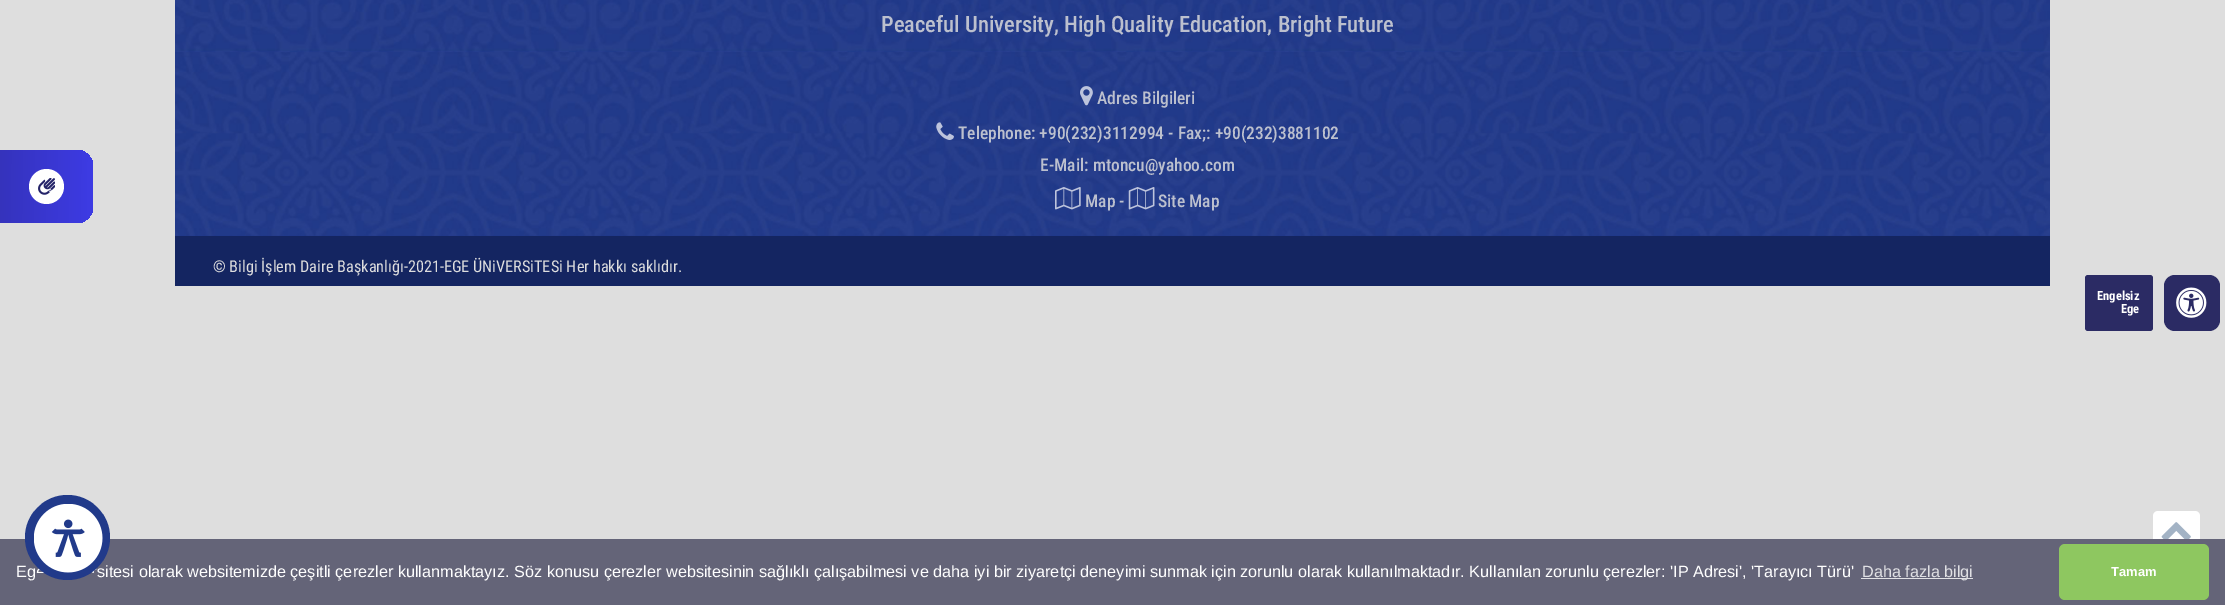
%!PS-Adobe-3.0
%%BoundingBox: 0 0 2225 605
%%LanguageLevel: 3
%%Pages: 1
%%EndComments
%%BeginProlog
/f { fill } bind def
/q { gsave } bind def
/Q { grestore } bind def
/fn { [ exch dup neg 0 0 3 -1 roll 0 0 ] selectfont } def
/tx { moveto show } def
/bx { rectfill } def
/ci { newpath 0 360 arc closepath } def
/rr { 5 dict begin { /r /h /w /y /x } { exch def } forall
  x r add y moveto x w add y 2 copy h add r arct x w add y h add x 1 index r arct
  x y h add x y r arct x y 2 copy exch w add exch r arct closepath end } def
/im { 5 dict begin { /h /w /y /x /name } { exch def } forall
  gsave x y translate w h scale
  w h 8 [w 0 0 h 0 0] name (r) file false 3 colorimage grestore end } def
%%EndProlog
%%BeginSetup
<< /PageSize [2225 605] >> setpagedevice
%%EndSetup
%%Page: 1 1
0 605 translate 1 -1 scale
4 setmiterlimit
0.871 setgray
0 0 2225 605 bx
q -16 150 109 73 16 rr clip newpath
<< /ShadingType 2 /ColorSpace /DeviceRGB /Coords [-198 184 93 188] /Extend [true true] /Function << /FunctionType 3 /Domain [0 1] /Functions [<< /FunctionType 2 /Domain [0 1] /C0 [0.141 0.137 0.408] /C1 [0.239 0.231 0.89] /N 1 >> << /FunctionType 2 /Domain [0 1] /C0 [0.239 0.231 0.89] /C1 [0.239 0.231 0.89] /N 1 >>] /Bounds [0.99] /Encode [0 1 0 1] >> >> shfill Q
1 setgray
46.5 186.5 17.5 ci f
(image0.raw) 38 178 17 17 im
(image1.raw) 175 0 1875 236 im
/RobotoCondensed-Medium 22.5 fn
0.737 0.753 0.808 setrgbcolor
(Peaceful University, High Quality Education, Bright Future) 881 32 tx
(image2.raw) 1080 86 13 20 im
/RobotoCondensed-Medium 17.5 fn
(Adres Bilgileri) 1097 104 tx
(image3.raw) 936 122 18 18 im
(Telephone: +90\(232\)3112994 - Fax;: +90\(232\)3881102) 958 139 tx
(E-Mail: mtoncu@yahoo.com) 1040 171 tx
(image4.raw) 1055 187 26 23 im
(Map -) 1085 207 tx
(image5.raw) 1128 187 27 23 im
(Site Map) 1158 207 tx
0.078 0.145 0.38 setrgbcolor
175 236 1875 50 bx
/RobotoCondensed-Regular 16.25 fn
0.867 0.867 0.871 setrgbcolor
(© Bilgi İşlem Daire Başkanlığı-2021-EGE ÜNiVERSiTESi Her hakkı saklıdır.) 213 272 tx
1 setgray
2153 511 47 44 5 rr f
(image6.raw) 2161 522 30 17 im
0.169 0.169 0.392 setrgbcolor
2164 275 56 56 11 rr f
2085 275 68 56 3 rr f
/RobotoCondensed-Bold 12.5 fn
1 setgray
(Engelsiz) 2097 300 tx
(Ege) 2121 313 tx
(image7.raw) 2176 287 31 31 im
0.392 0.392 0.471 setrgbcolor
0 539 2225 66 bx
/LiberationSans-Regular 16.25 fn
1 setgray
(Eg) 16 577 tx
(sitesi olarak websitemizde çeşitli çerezler kullanmaktayız. Söz konusu çerezler websitesinin sağlıklı çalışabilmesi ve daha iyi bir ziyaretçi deneyimi sunmak için zorunlu olarak kullanılmaktadır. Kullanılan zorunlu çerezler: 'IP Adresi', 'Tarayıcı Türü') 97 577 tx
0.129 0.227 0.541 setrgbcolor
67.5 537.5 42.5 ci f
(image8.raw) 34 504 69 69 im
0.878 0.878 0.894 setrgbcolor
1861 578 112 1 bx
(Daha fazla bilgi) 1862 577 tx
0.557 0.78 0.376 setrgbcolor
2059 544 150 56 6 rr f
/LiberationSans-Bold 13 fn
1 setgray
(Tamam) 2111 576 tx
showpage
%%EOF
